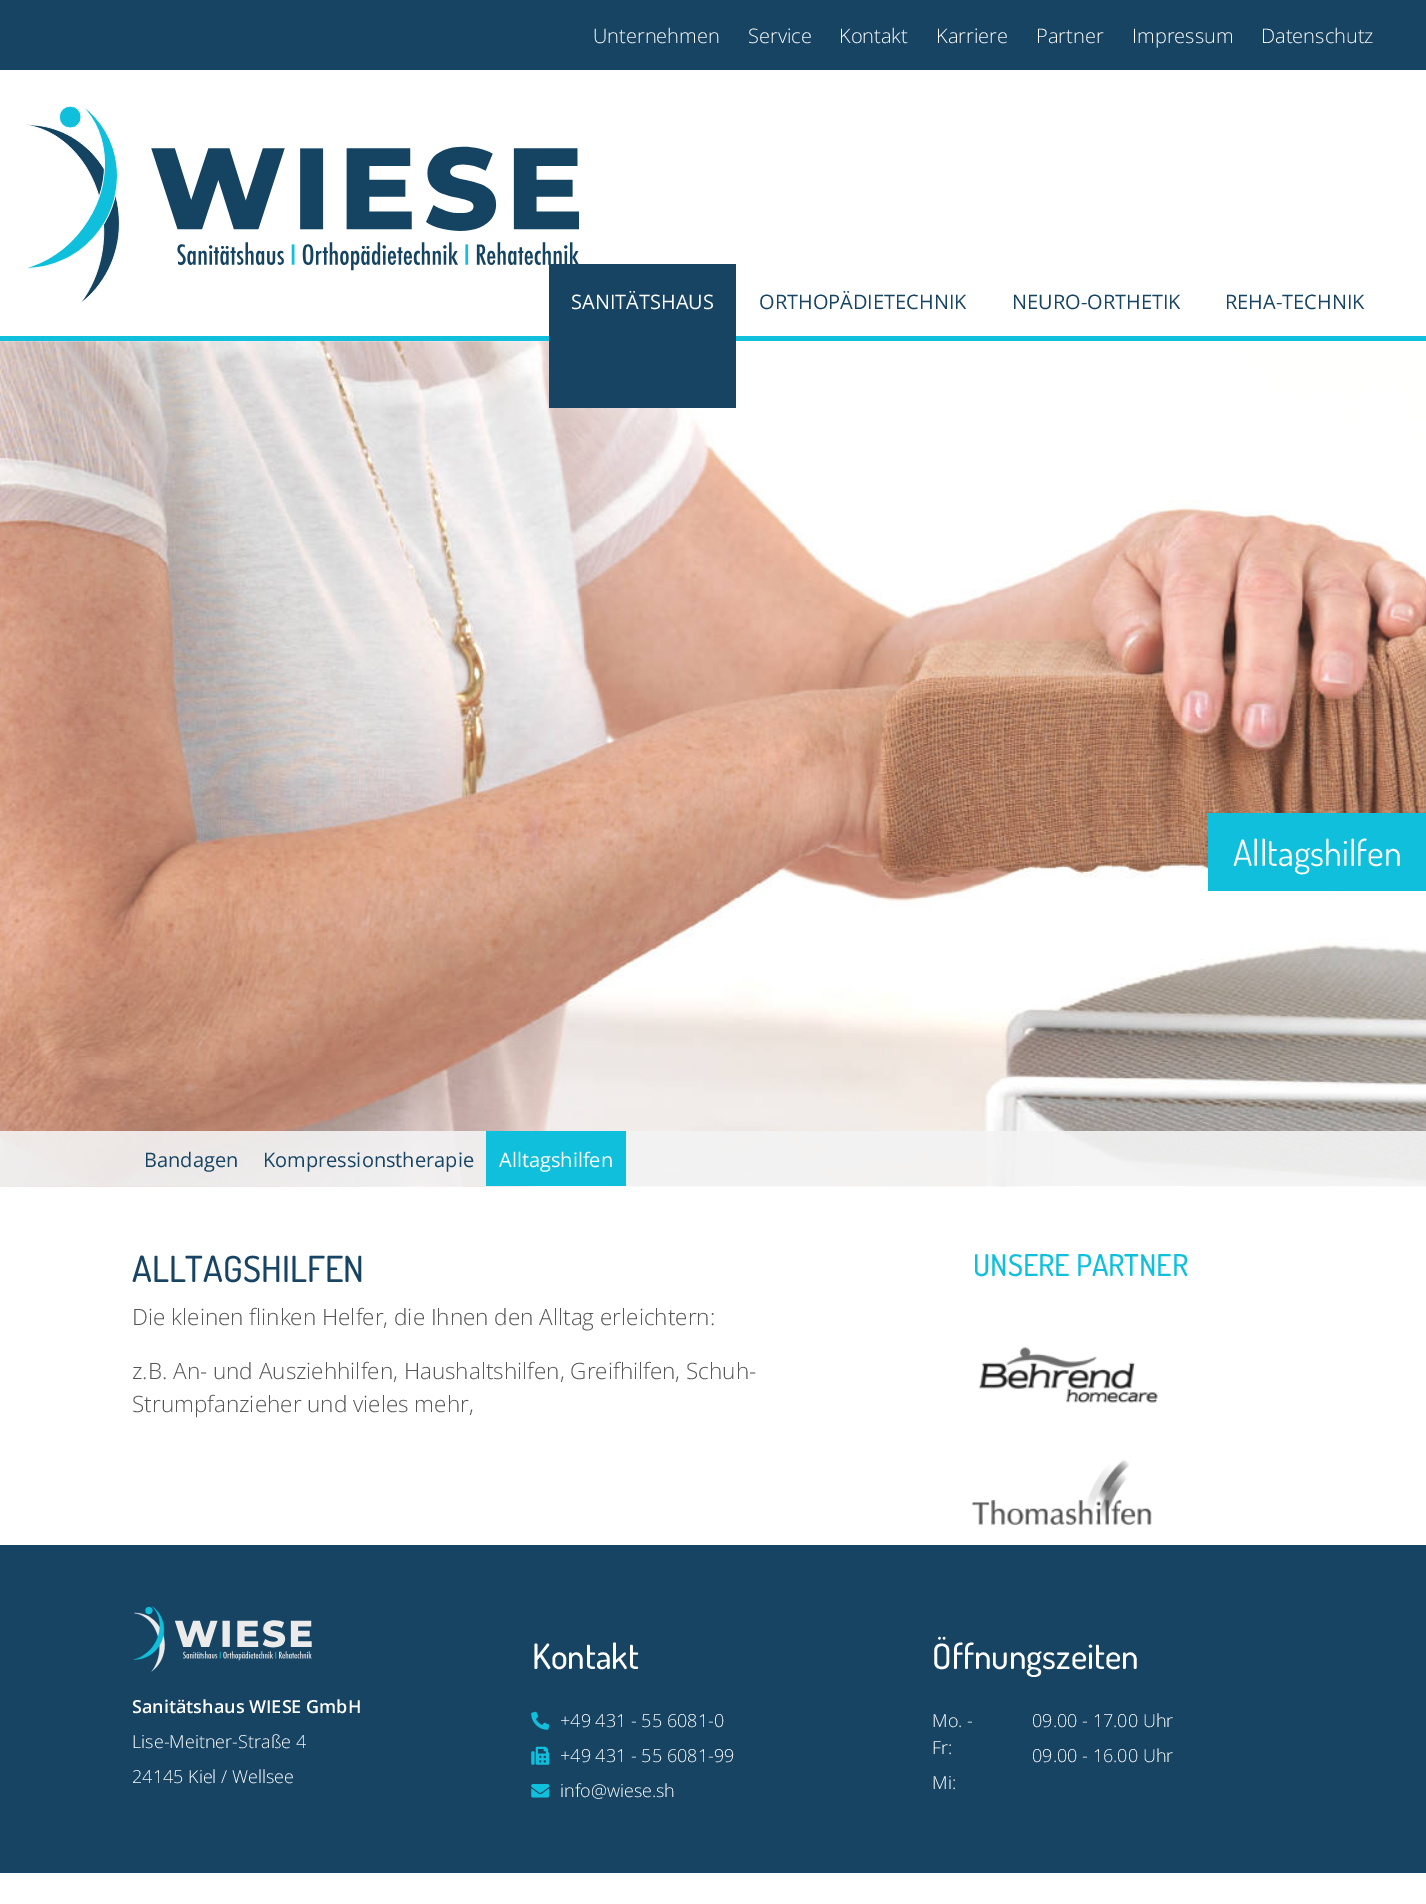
%!PS-Adobe-3.0
%%BoundingBox: 0 0 1426 1904
%%LanguageLevel: 3
%%Pages: 1
%%EndComments
%%BeginProlog
/fn { [ exch dup neg 0 0 3 -1 roll 0 0 ] selectfont } def
/tx { moveto show } def
/bx { rectfill } def
/al { dup .setfillconstantalpha .setstrokeconstantalpha } def
/im { 5 dict begin { /h /w /y /x /name } { exch def } forall
  gsave x y translate w h scale
  w h 8 [w 0 0 h 0 0] name (r) file false 3 colorimage grestore end } def
%%EndProlog
%%BeginSetup
<< /PageSize [1426 1904] /PageUsesTransparency true >> setpagedevice
%%EndSetup
%%Page: 1 1
0 .pushpdf14devicefilter
0 1904 translate 1 -1 scale
4 setmiterlimit
1 setgray
0 0 1426 1904 bx
0.09 0.267 0.388 setrgbcolor
0 0 1426 70 bx
/OpenSans-Light 20 fn
1 setgray
(Unternehmen) 593 43 tx
(Service) 748 43 tx
(Kontakt) 839 43 tx
(Karriere) 936 43 tx
(Partner) 1036 43 tx
(Impressum) 1132 43 tx
(Datenschutz) 1261 43 tx
(image0.raw) 25 104 554 199 im
(image1.raw) 0 341 1426 846 im
0.059 0.749 0.859 setrgbcolor
0 336 1426 5 bx
0.09 0.267 0.388 setrgbcolor
549 264 187 144 bx
/OpenSans-Regular 20 fn
1 setgray
(SANITÄTSHAUS) 571 309 tx
0.09 0.267 0.388 setrgbcolor
(ORTHOPÄDIETECHNIK) 759 309 tx
(NEURO-ORTHETIK) 1012 309 tx
(REHA-TECHNIK) 1225 309 tx
0.059 0.749 0.859 setrgbcolor
1208 813 218 78 bx
/Dosis-Regular 36 fn
1 setgray
(Alltagshilfen) 1233 866 tx
0.9 al
0.953 setgray
0 1131 1426 55 bx
/OpenSans-Regular 20 fn
1 al
0.09 0.267 0.388 setrgbcolor
(Bandagen) 144 1167 tx
(Kompressionstherapie) 263 1167 tx
0.059 0.749 0.859 setrgbcolor
486 1131 140 55 bx
1 setgray
(Alltagshilfen) 499 1167 tx
/Dosis-Medium 36 fn
0.09 0.267 0.388 setrgbcolor
(ALLTAGSHILFEN) 132 1282 tx
/OpenSans-Light 22.5 fn
0.333 setgray
(Die kleinen flinken Helfer, die Ihnen den Alltag erleichtern:) 132 1325 tx
(z.B. An- und Ausziehhilfen, Haushaltshilfen, Greifhilfen, Schuh-) 132 1379 tx
(Strumpfanzieher und vieles mehr,) 132 1412 tx
/Dosis-Medium 30 fn
0.059 0.749 0.859 setrgbcolor
(UNSERE PARTNER) 973 1276 tx
(image2.raw) 978 1347 180 56 im
(image3.raw) 972 1460 180 65 im
0.09 0.267 0.388 setrgbcolor
0 1545 1426 328 bx
(image4.raw) 133 1606 179 66 im
/OpenSans-SemiBold 18 fn
1 setgray
(Sanitätshaus WIESE GmbH) 132 1713 tx
/OpenSans-Light 18 fn
(Lise-Meitner-Straße 4) 132 1748 tx
(24145 Kiel / Wellsee) 132 1783 tx
/Dosis-Medium 35 fn
(Kontakt) 532 1669 tx
(image5.raw) 531 1711 19 19 im
/OpenSans-Light 18 fn
(+49 431 - 55 6081-0) 560 1727 tx
(image6.raw) 531 1746 19 19 im
(+49 431 - 55 6081-99) 560 1762 tx
(image7.raw) 531 1784 19 14 im
(info@wiese.sh) 560 1797 tx
/Dosis-Medium 35 fn
(Öffnungszeiten) 932 1669 tx
/OpenSans-Light 18 fn
(Mo. -) 932 1727 tx
(Fr:) 932 1754 tx
(Mi:) 932 1789 tx
(09.00 - 17.00 Uhr) 1032 1727 tx
(09.00 - 16.00 Uhr) 1032 1762 tx
.poppdf14devicefilter showpage
%%EOF
